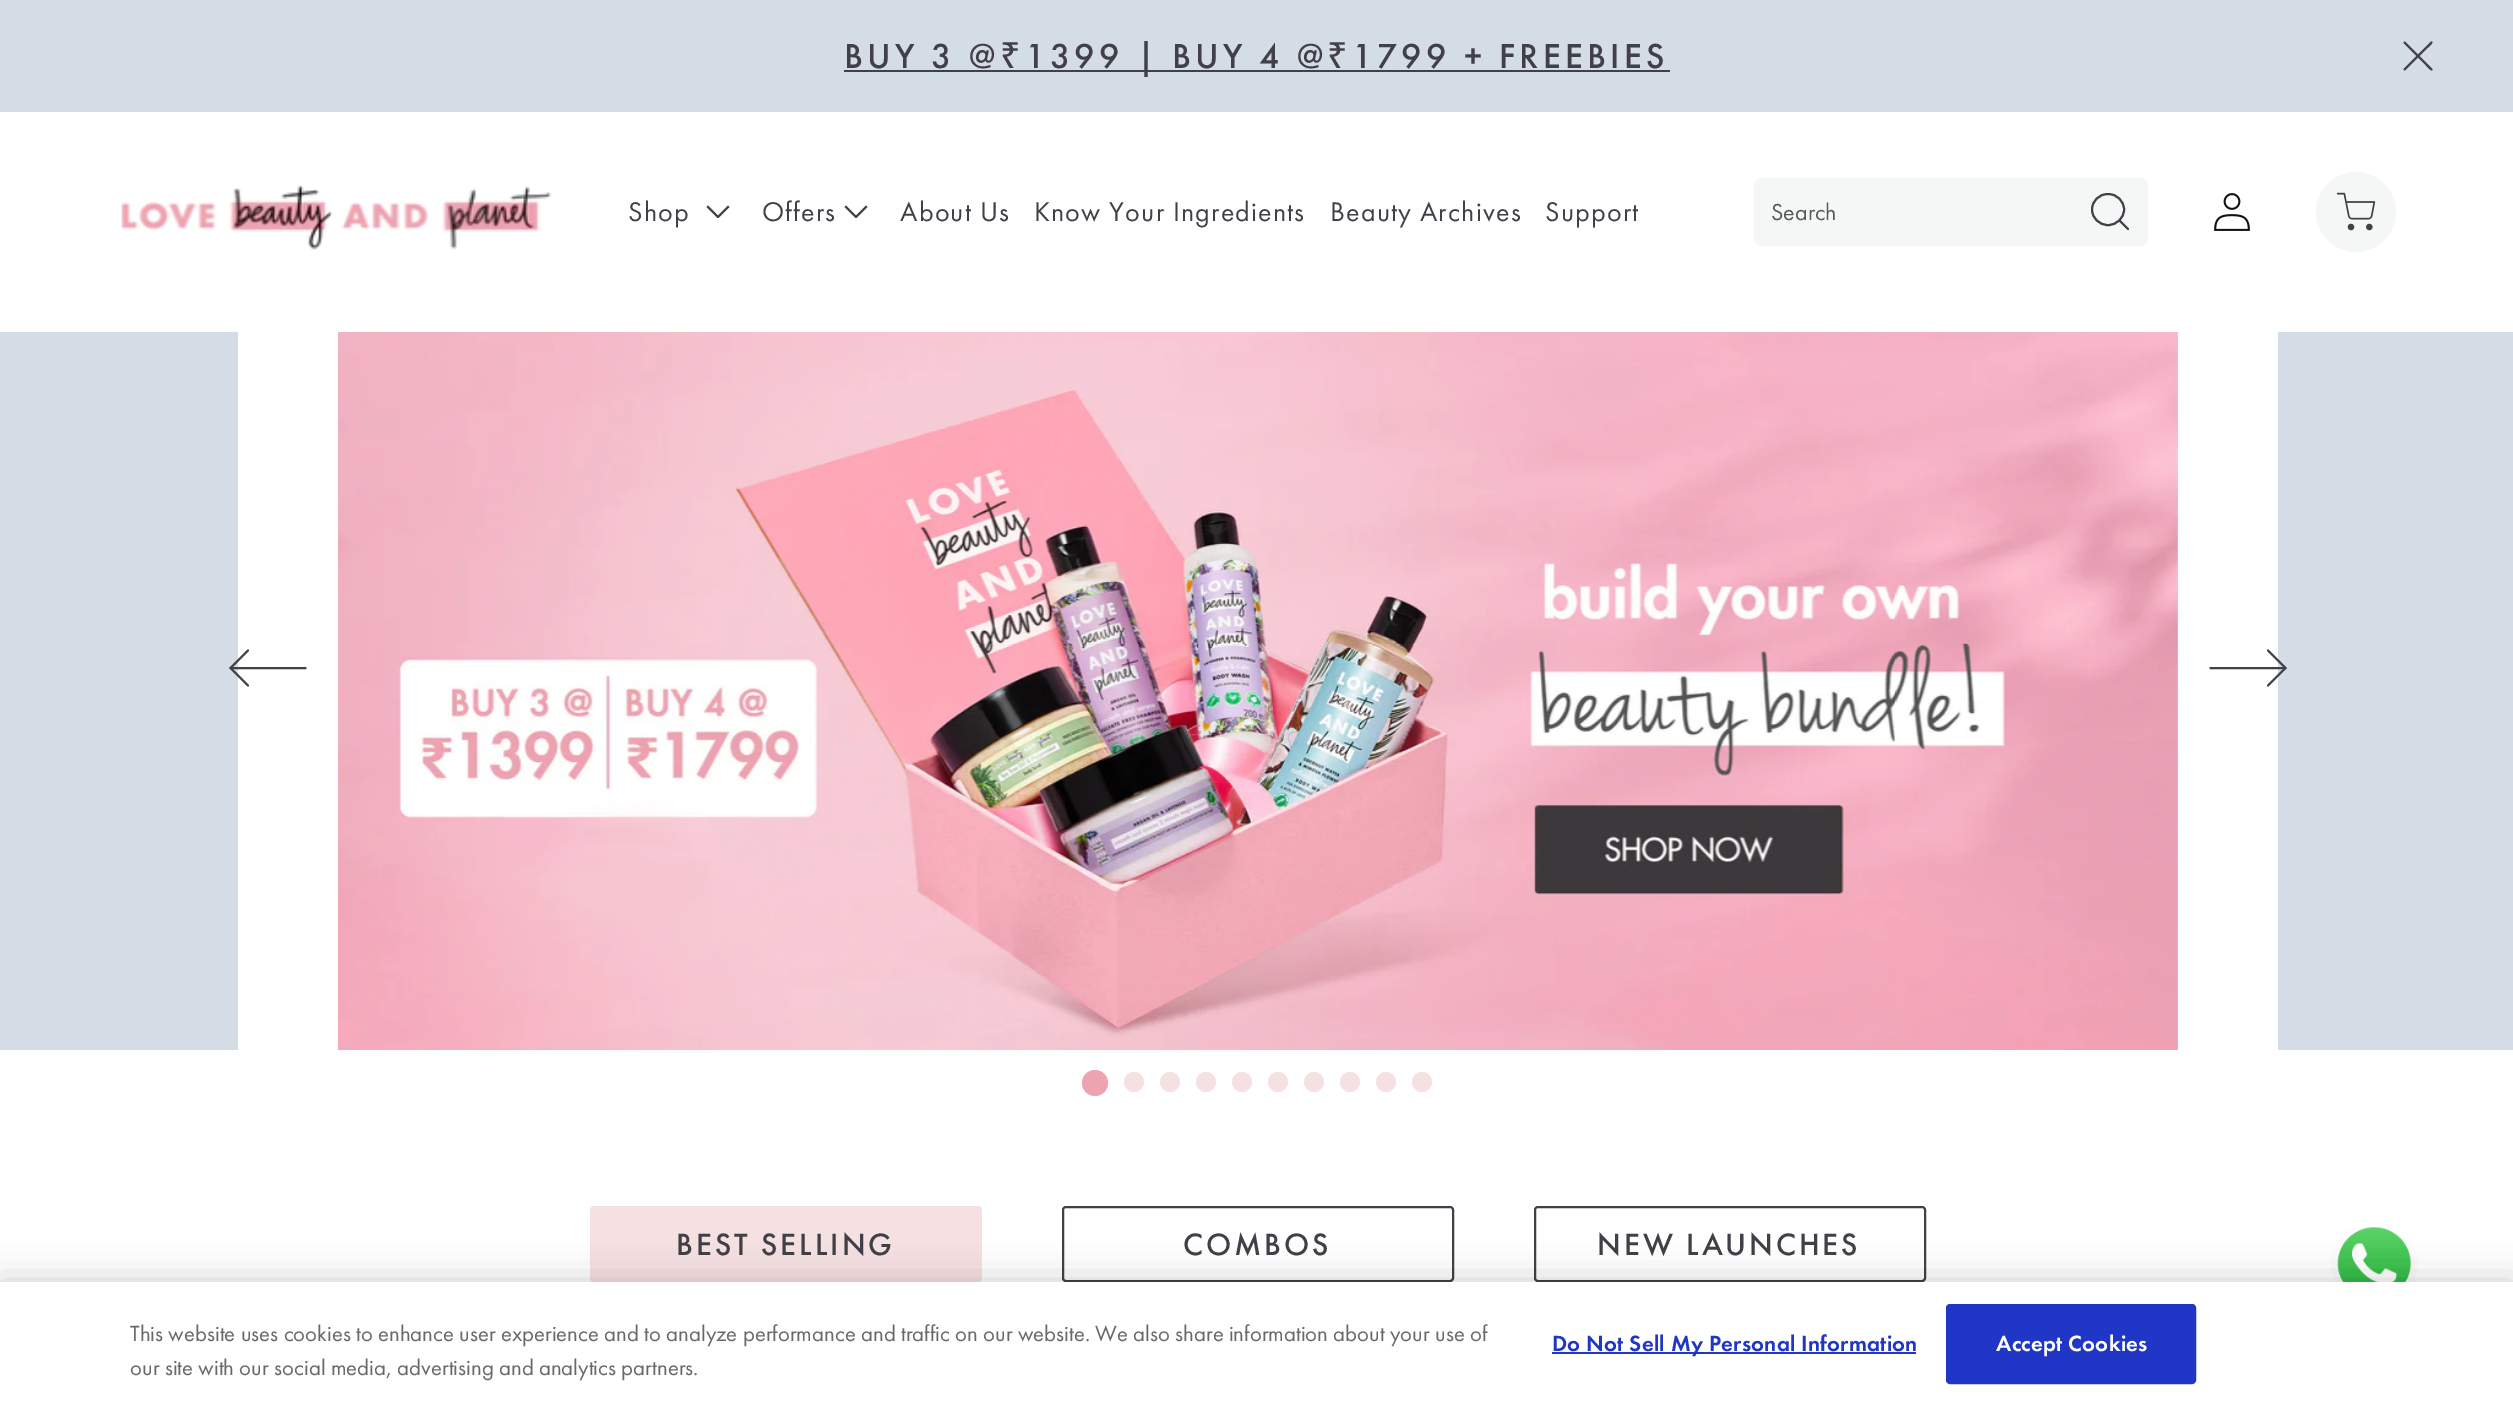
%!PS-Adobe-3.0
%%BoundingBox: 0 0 2513 1404
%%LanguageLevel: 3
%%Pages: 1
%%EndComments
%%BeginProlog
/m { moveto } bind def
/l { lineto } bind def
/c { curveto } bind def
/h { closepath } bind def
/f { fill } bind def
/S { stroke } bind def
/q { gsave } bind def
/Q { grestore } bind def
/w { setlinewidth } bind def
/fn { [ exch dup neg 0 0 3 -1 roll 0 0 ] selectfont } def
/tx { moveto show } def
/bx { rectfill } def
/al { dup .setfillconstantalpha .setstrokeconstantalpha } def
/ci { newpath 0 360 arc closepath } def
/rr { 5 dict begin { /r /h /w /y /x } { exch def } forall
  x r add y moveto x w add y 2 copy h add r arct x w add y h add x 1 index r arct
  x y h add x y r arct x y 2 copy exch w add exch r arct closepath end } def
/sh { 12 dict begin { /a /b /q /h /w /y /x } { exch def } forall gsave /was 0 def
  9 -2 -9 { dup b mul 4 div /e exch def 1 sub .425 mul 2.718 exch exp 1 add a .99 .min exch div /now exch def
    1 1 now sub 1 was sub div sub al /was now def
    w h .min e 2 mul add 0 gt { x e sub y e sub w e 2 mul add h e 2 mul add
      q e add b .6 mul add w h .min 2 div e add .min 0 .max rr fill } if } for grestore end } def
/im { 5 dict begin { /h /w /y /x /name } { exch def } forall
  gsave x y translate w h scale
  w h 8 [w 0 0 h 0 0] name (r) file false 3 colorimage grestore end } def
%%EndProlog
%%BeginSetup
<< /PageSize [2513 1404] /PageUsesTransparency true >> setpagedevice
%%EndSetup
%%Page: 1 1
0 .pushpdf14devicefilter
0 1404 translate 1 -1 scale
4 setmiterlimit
1 setgray
0 0 2513 1404 bx
0.831 0.863 0.902 setrgbcolor
0 0 2513 112 bx
/FuturaPT-Medium 36 fn
0.255 0.247 0.278 setrgbcolor
844 68 m 4.3 0 (BUY 3 @) ashow
/NotoSans-Regular 36 fn
1000 68 m 4.3 0 (₹) ashow
844 70 826 2 bx
/FuturaPT-Medium 36 fn
1025 68 m 4.3 0 (1399 | BUY 4 @) ashow
/NotoSans-Regular 36 fn
1327 68 m 4.3 0 (₹) ashow
/FuturaPT-Medium 36 fn
1352 68 m 4.3 0 (1799 + FREEBIES) ashow
2405.5 42 m 2432.5 69 l 2432.5 70 l 2431 71.5 2428.5 68 2426 65.5 c 2404 43.5 l 2403 42.5 2404.5 41 2405.5 42 c h f
2404 68.5 m 2431 41.5 l 2432 41.5 l 2433.5 43 2430 45.5 2427.5 48 c 2405.5 70 l 2404.5 71 2403 69.5 2404 68.5 c h f
(image0.raw) 121 185 431 65 im
/FuturaPT-Regular 28 fn
628 221 m 1.2 0 (Shop) ashow
2 w
2 setlinecap
1 setlinejoin
708 207 m 718 217 l 728 207 l S
762 221 m 1.2 0 (Offers) ashow
846 207 m 856 217 l 866 207 l S
900 221 m 1.2 0 (About Us) ashow
1034 221 m 1.2 0 (Know Your Ingredients) ashow
1330 221 m 1.2 0 (Beauty Archives) ashow
1545 221 m 1.2 0 (Support) ashow
0.961 0.965 0.965 setrgbcolor
1754 178 394 68 8 rr f
/FuturaPT-Regular 24 fn
0.337 0.349 0.361 setrgbcolor
(Search) 1771 220 tx
0.255 0.247 0.278 setrgbcolor
1 setlinecap
2128 229 m 2119.5 220.5 l 2108 225 m 2117 225 2124 218 2124 209.5 c 2124 201 2117 194 2108 194 c 2099 194 2092 201 2092 209.5 c 2092 218 2099 225 2108 225 c h S
(image1.raw) 2214 193 36 38 im
0.961 0.965 0.965 setrgbcolor
2356 212 40 ci f
(image2.raw) 2336 192 40 39 im
0.831 0.863 0.902 setrgbcolor
0 332 238 718 bx
(image3.raw) 338 332 1840 718 im
2278 332 235 718 bx
0.255 0.247 0.278 setrgbcolor
305.5 668 m 230.5 668 l S
248 650.5 m 230.5 668 l 248 685.5 l S
2210.5 668 m 2285.5 668 l S
2268 650.5 m 2285.5 668 l 2268 685.5 l S
0.929 0.639 0.69 setrgbcolor
1095 1083 13 ci f
0.965 0.882 0.886 setrgbcolor
1134 1082 10 ci f
1170 1082 10 ci f
1206 1082 10 ci f
1242 1082 10 ci f
1278 1082 10 ci f
1314 1082 10 ci f
1350 1082 10 ci f
1386 1082 10 ci f
1422 1082 10 ci f
590 1206 392 76 4 rr f
/FuturaPT-Medium 32 fn
0.255 0.247 0.278 setrgbcolor
676 1255 m 2.9 0 (BEST SELLING) ashow
0 setlinecap
0 setlinejoin
1063 1207 390 74 3 rr S
1183 1255 m 2.9 0 (COMBOS) ashow
1535 1207 390 74 3 rr S
1597 1255 m 2.9 0 (NEW LAUNCHES) ashow
(image4.raw) 2331 1227 86 55 im
0 setgray
0 1282 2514 122 0 18 0.2 sh
1 setgray
0 1282 2513 122 bx
/FuturaPT-Regular 22.75 fn
0.412 setgray
(This website uses cookies to enhance user experience and to analyze performance and traffic on our website. We also share information about your use of) 130 1341 tx
(our site with our social media, advertising and analytics partners.) 130 1375 tx
0.122 0.212 0.78 setrgbcolor
1552 1352 364 2 bx
/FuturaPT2-Medium 22.75 fn
1552 1351 m 0.25 0 (Do Not Sell My Personal Information) ashow
1947 1305 248 78 3 rr q f Q
S
1 setgray
1996 1351 m 0.25 0 (Accept Cookies) ashow
.poppdf14devicefilter showpage
%%EOF
